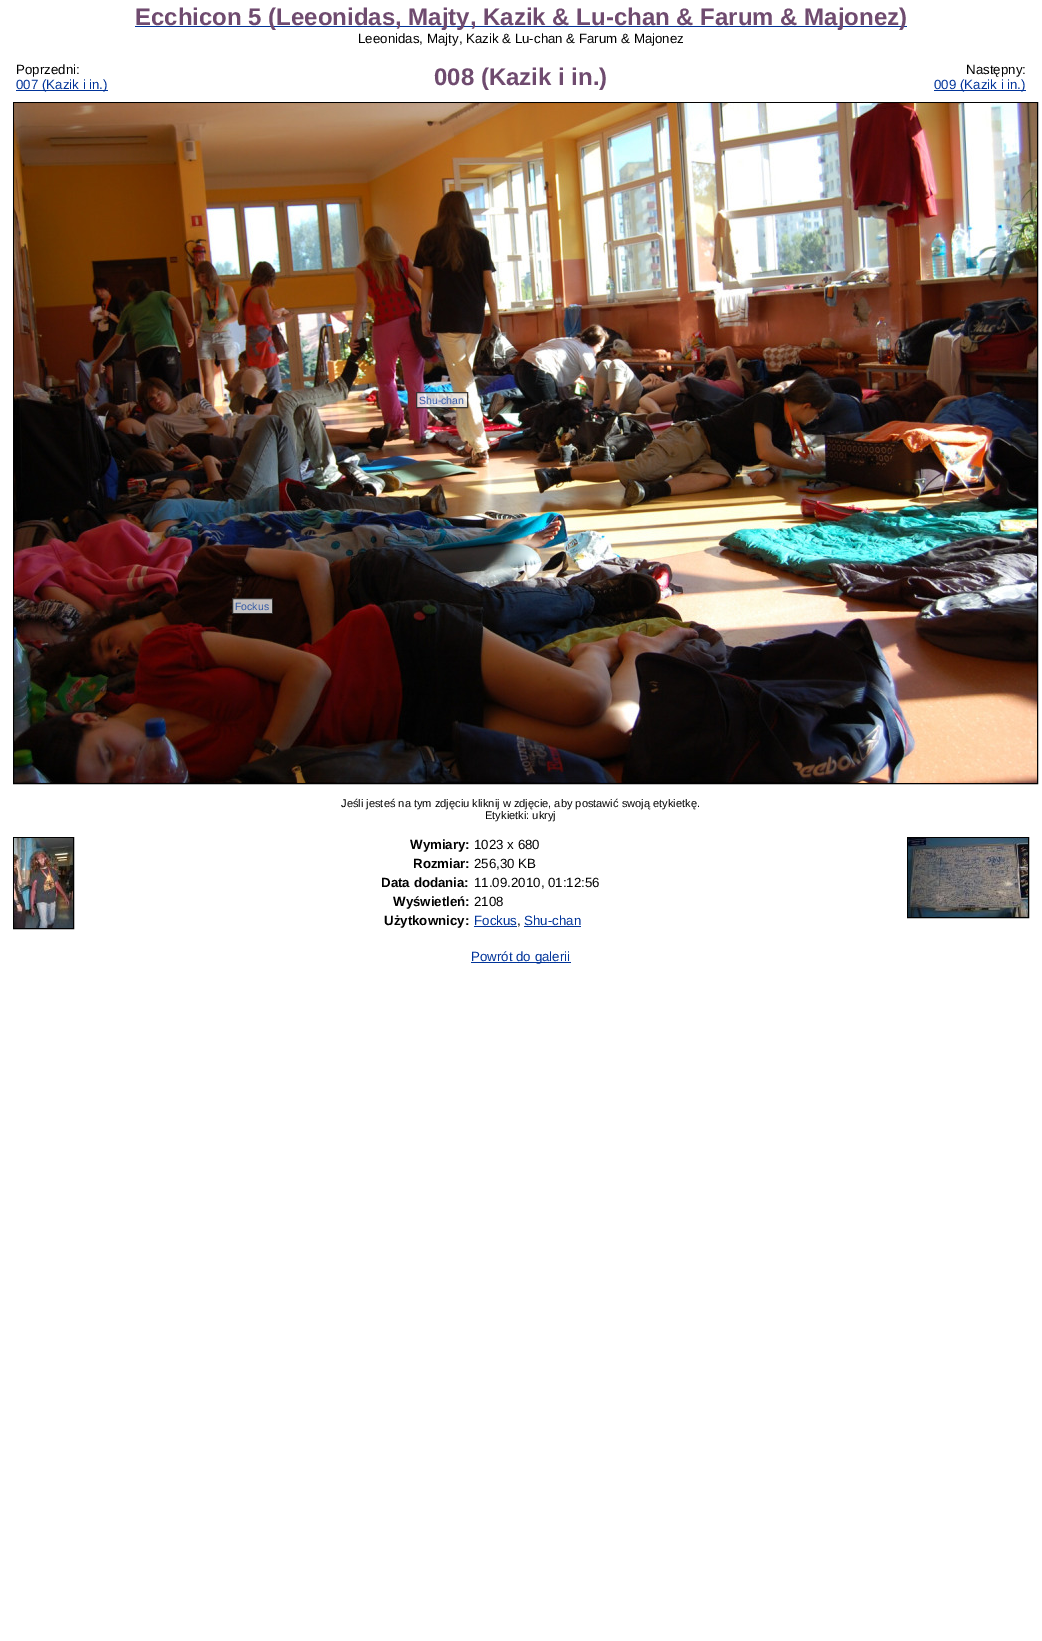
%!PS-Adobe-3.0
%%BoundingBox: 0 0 1042 1641
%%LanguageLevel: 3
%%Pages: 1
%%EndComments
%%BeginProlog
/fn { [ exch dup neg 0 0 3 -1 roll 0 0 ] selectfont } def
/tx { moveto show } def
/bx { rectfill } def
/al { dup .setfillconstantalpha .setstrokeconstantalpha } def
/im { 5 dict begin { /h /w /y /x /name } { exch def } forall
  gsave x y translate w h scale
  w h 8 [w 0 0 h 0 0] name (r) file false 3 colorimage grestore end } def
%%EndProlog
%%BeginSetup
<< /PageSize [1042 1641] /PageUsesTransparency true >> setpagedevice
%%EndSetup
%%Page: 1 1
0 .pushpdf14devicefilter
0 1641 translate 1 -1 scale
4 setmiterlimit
1 setgray
0 0 1042 1641 bx
0 0.2 0.6 setrgbcolor
135 26 772 1 bx
/LiberationSans-Bold 24 fn
0.435 0.294 0.435 setrgbcolor
(Ecchicon 5 \(Leeonidas, Majty, Kazik & Lu-chan & Farum & Majonez\)) 135 25 tx
/LiberationSans-Regular 13.3 fn
0 setgray
(Leeonidas, Majty, Kazik & Lu-chan & Farum & Majonez) 358 43 tx
(Poprzedni:) 16 74 tx
0 0.2 0.6 setrgbcolor
16 90 92 1 bx
(007 \(Kazik i in.\)) 16 89 tx
/LiberationSans-Bold 24 fn
0.435 0.294 0.435 setrgbcolor
(008 \(Kazik i in.\)) 434 85 tx
/LiberationSans-Regular 13.3 fn
0 setgray
(Następny:) 966 74 tx
0 0.2 0.6 setrgbcolor
934 90 92 1 bx
(009 \(Kazik i in.\)) 934 89 tx
0 setgray
13.5 102.5 1024 681 rectstroke
(image0.raw) 14 103 1023 680 im
0.75 al
1 setgray
416 392 52 16 bx
0 setgray
416.5 392.5 51 15 rectstroke
/LiberationSans-Regular 10.5 fn
1 al
0.216 0.361 0.663 setrgbcolor
(Shu-chan) 419 404 tx
0.75 al
1 setgray
232 598 41 16 bx
0 setgray
232.5 598.5 40 15 rectstroke
1 al
0.192 0.341 0.639 setrgbcolor
(Fockus) 235 610 tx
/LiberationSans-Regular 11.1 fn
0 setgray
(Jeśli jesteś na tym zdjęciu kliknij w zdjęcie, aby postawić swoją etykietkę.) 341 807 tx
(Etykietki: ukryj) 485 819 tx
13.5 837.5 60 91 rectstroke
(image1.raw) 14 838 59 90 im
/LiberationSans-Bold 13.3 fn
(Wymiary:) 410 849 tx
/LiberationSans-Regular 13.3 fn
(1023 x 680) 474 849 tx
/LiberationSans-Bold 13.3 fn
(Rozmiar:) 413 868 tx
/LiberationSans-Regular 13.3 fn
(256,30 KB) 474 868 tx
/LiberationSans-Bold 13.3 fn
(Data dodania:) 381 887 tx
/LiberationSans-Regular 13.3 fn
(11.09.2010, 01:12:56) 474 887 tx
/LiberationSans-Bold 13.3 fn
(Wyświetleń:) 393 906 tx
/LiberationSans-Regular 13.3 fn
(2108) 474 906 tx
/LiberationSans-Bold 13.3 fn
(Użytkownicy:) 384 925 tx
/LiberationSans-Regular 13.3 fn
0 0.2 0.6 setrgbcolor
(Fockus) 474 925 tx
474 926 43 1 bx
0 setgray
(,) 517 925 tx
0 0.2 0.6 setrgbcolor
(Shu-chan) 524 925 tx
524 926 57 1 bx
0 setgray
907.5 837.5 121 80 rectstroke
(image2.raw) 908 838 120 79 im
0 0.2 0.6 setrgbcolor
471 962 100 1 bx
(Powrót do galerii) 471 961 tx
.poppdf14devicefilter showpage
%%EOF
